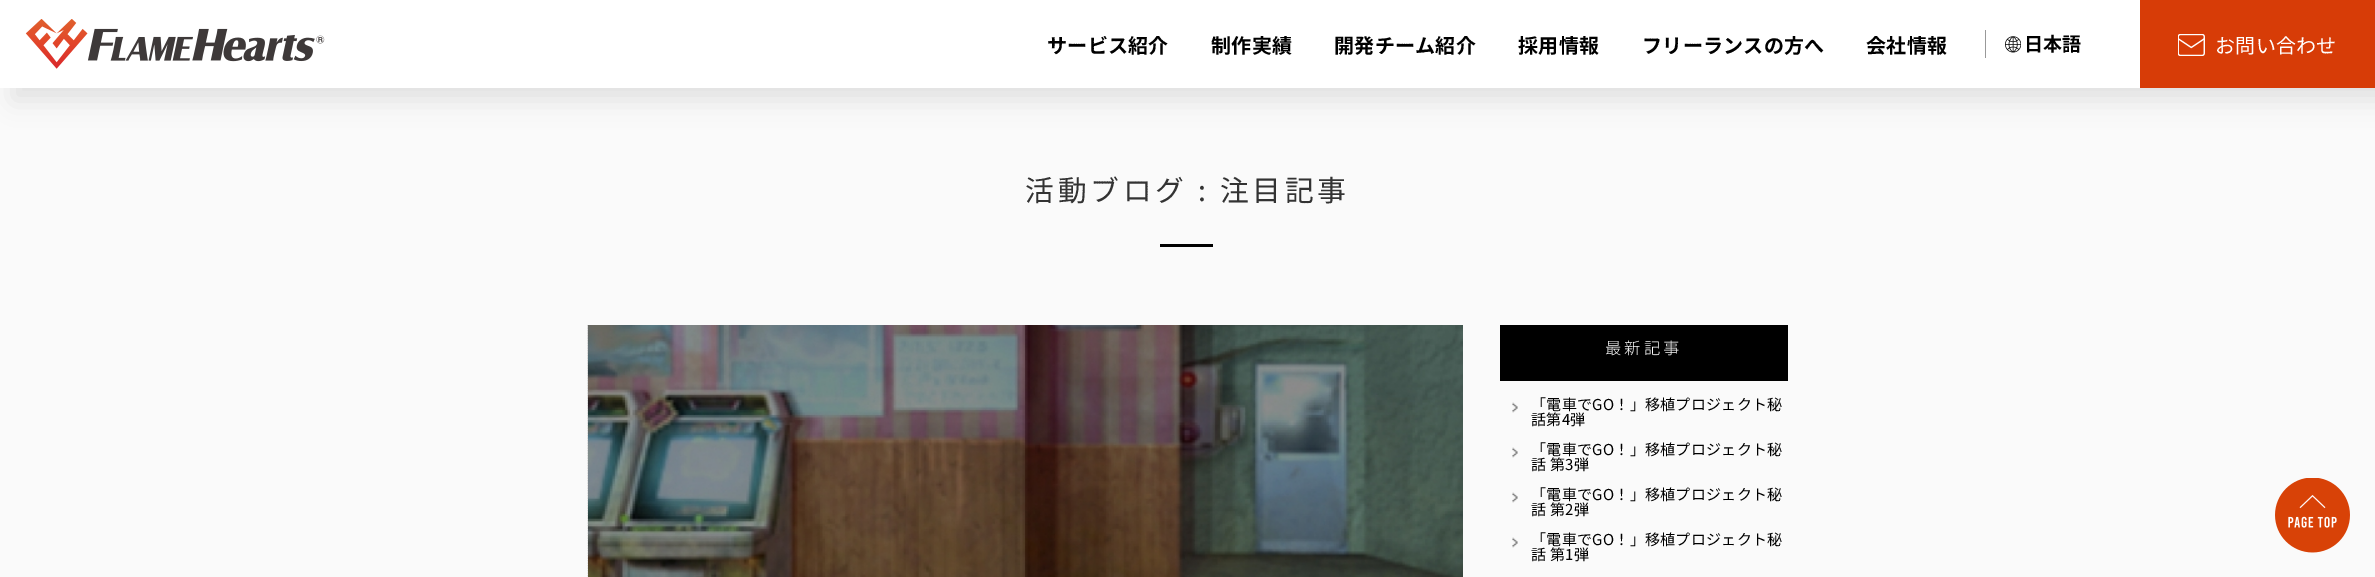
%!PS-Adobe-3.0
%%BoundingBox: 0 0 2375 577
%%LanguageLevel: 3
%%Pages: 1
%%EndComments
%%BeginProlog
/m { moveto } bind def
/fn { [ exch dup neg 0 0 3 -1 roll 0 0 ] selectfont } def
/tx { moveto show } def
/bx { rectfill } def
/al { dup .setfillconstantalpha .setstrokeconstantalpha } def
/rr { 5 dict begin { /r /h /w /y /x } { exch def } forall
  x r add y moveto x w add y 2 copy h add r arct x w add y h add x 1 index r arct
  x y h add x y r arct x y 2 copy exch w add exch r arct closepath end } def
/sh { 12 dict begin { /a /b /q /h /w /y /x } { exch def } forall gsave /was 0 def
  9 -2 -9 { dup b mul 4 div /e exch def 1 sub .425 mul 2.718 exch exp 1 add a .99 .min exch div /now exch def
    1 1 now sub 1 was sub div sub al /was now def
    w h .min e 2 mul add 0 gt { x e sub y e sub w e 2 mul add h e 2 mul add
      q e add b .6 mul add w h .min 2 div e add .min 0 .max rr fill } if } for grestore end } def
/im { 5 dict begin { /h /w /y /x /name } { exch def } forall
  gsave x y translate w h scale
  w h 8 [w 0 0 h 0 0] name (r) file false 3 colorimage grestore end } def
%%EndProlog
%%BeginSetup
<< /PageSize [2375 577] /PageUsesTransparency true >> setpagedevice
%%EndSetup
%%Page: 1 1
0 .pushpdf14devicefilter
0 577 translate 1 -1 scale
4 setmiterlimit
0.98 setgray
0 0 2375 577 bx
0 setgray
13 13 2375 87 0 12.5 0.1 sh
1 setgray
0 0 2140 88 bx
(image0.raw) 25 19 300 50 im
/NotoSansJP-Bold 20 fn
0 setgray
1047 53 m 0.3 0 (サービス紹介) ashow
1211 53 m 0.3 0 (制作実績) ashow
1334 53 m 0.3 0 (開発チーム紹介) ashow
1518 53 m 0.3 0 (採用情報) ashow
1642 53 m 0.3 0 (フリーランスの方へ) ashow
1866 53 m 0.3 0 (会社情報) ashow
(image1.raw) 2005 36 16 17 im
0.6 setgray
1985 30 1 28 bx
/NotoSansJP-Bold 19 fn
0 setgray
(日本語) 2024 51 tx
0.843 0.235 0.027 setrgbcolor
2140 0 235 88 bx
(image2.raw) 2178 34 27 22 im
/NotoSansJP-Regular 20 fn
1 setgray
2215 53 m 0.3 0 (お問い合わせ) ashow
/NotoSansJP-Regular 28.75 fn
0.2 setgray
1025 201 m 3.75 0 (活動ブログ : 注目記事) ashow
0 setgray
1160 244 53 3 bx
(image3.raw) 587 325 1 252 im
(image4.raw) 588 325 875 252 im
1500 325 288 56 bx
/NotoSansJP-Light 16.25 fn
1 setgray
1605 354 m 3 0 (最新記事) ashow
(image5.raw) 1512 402 6 11 im
/NotoSansJP-Regular 15 fn
0 setgray
1531 410 m 0.3 0 (「電車でGO！」移植プロジェクト秘) ashow
1531 425 m 0.3 0 (話第4弾) ashow
(image5.raw) 1512 447 6 11 im
1531 455 m 0.3 0 (「電車でGO！」移植プロジェクト秘) ashow
1531 470 m 0.3 0 (話 第3弾) ashow
(image5.raw) 1512 492 6 11 im
1531 500 m 0.3 0 (「電車でGO！」移植プロジェクト秘) ashow
1531 515 m 0.3 0 (話 第2弾) ashow
(image5.raw) 1512 537 6 11 im
1531 545 m 0.3 0 (「電車でGO！」移植プロジェクト秘) ashow
1531 560 m 0.3 0 (話 第1弾) ashow
(image6.raw) 2275 478 75 75 im
.poppdf14devicefilter showpage
%%EOF
